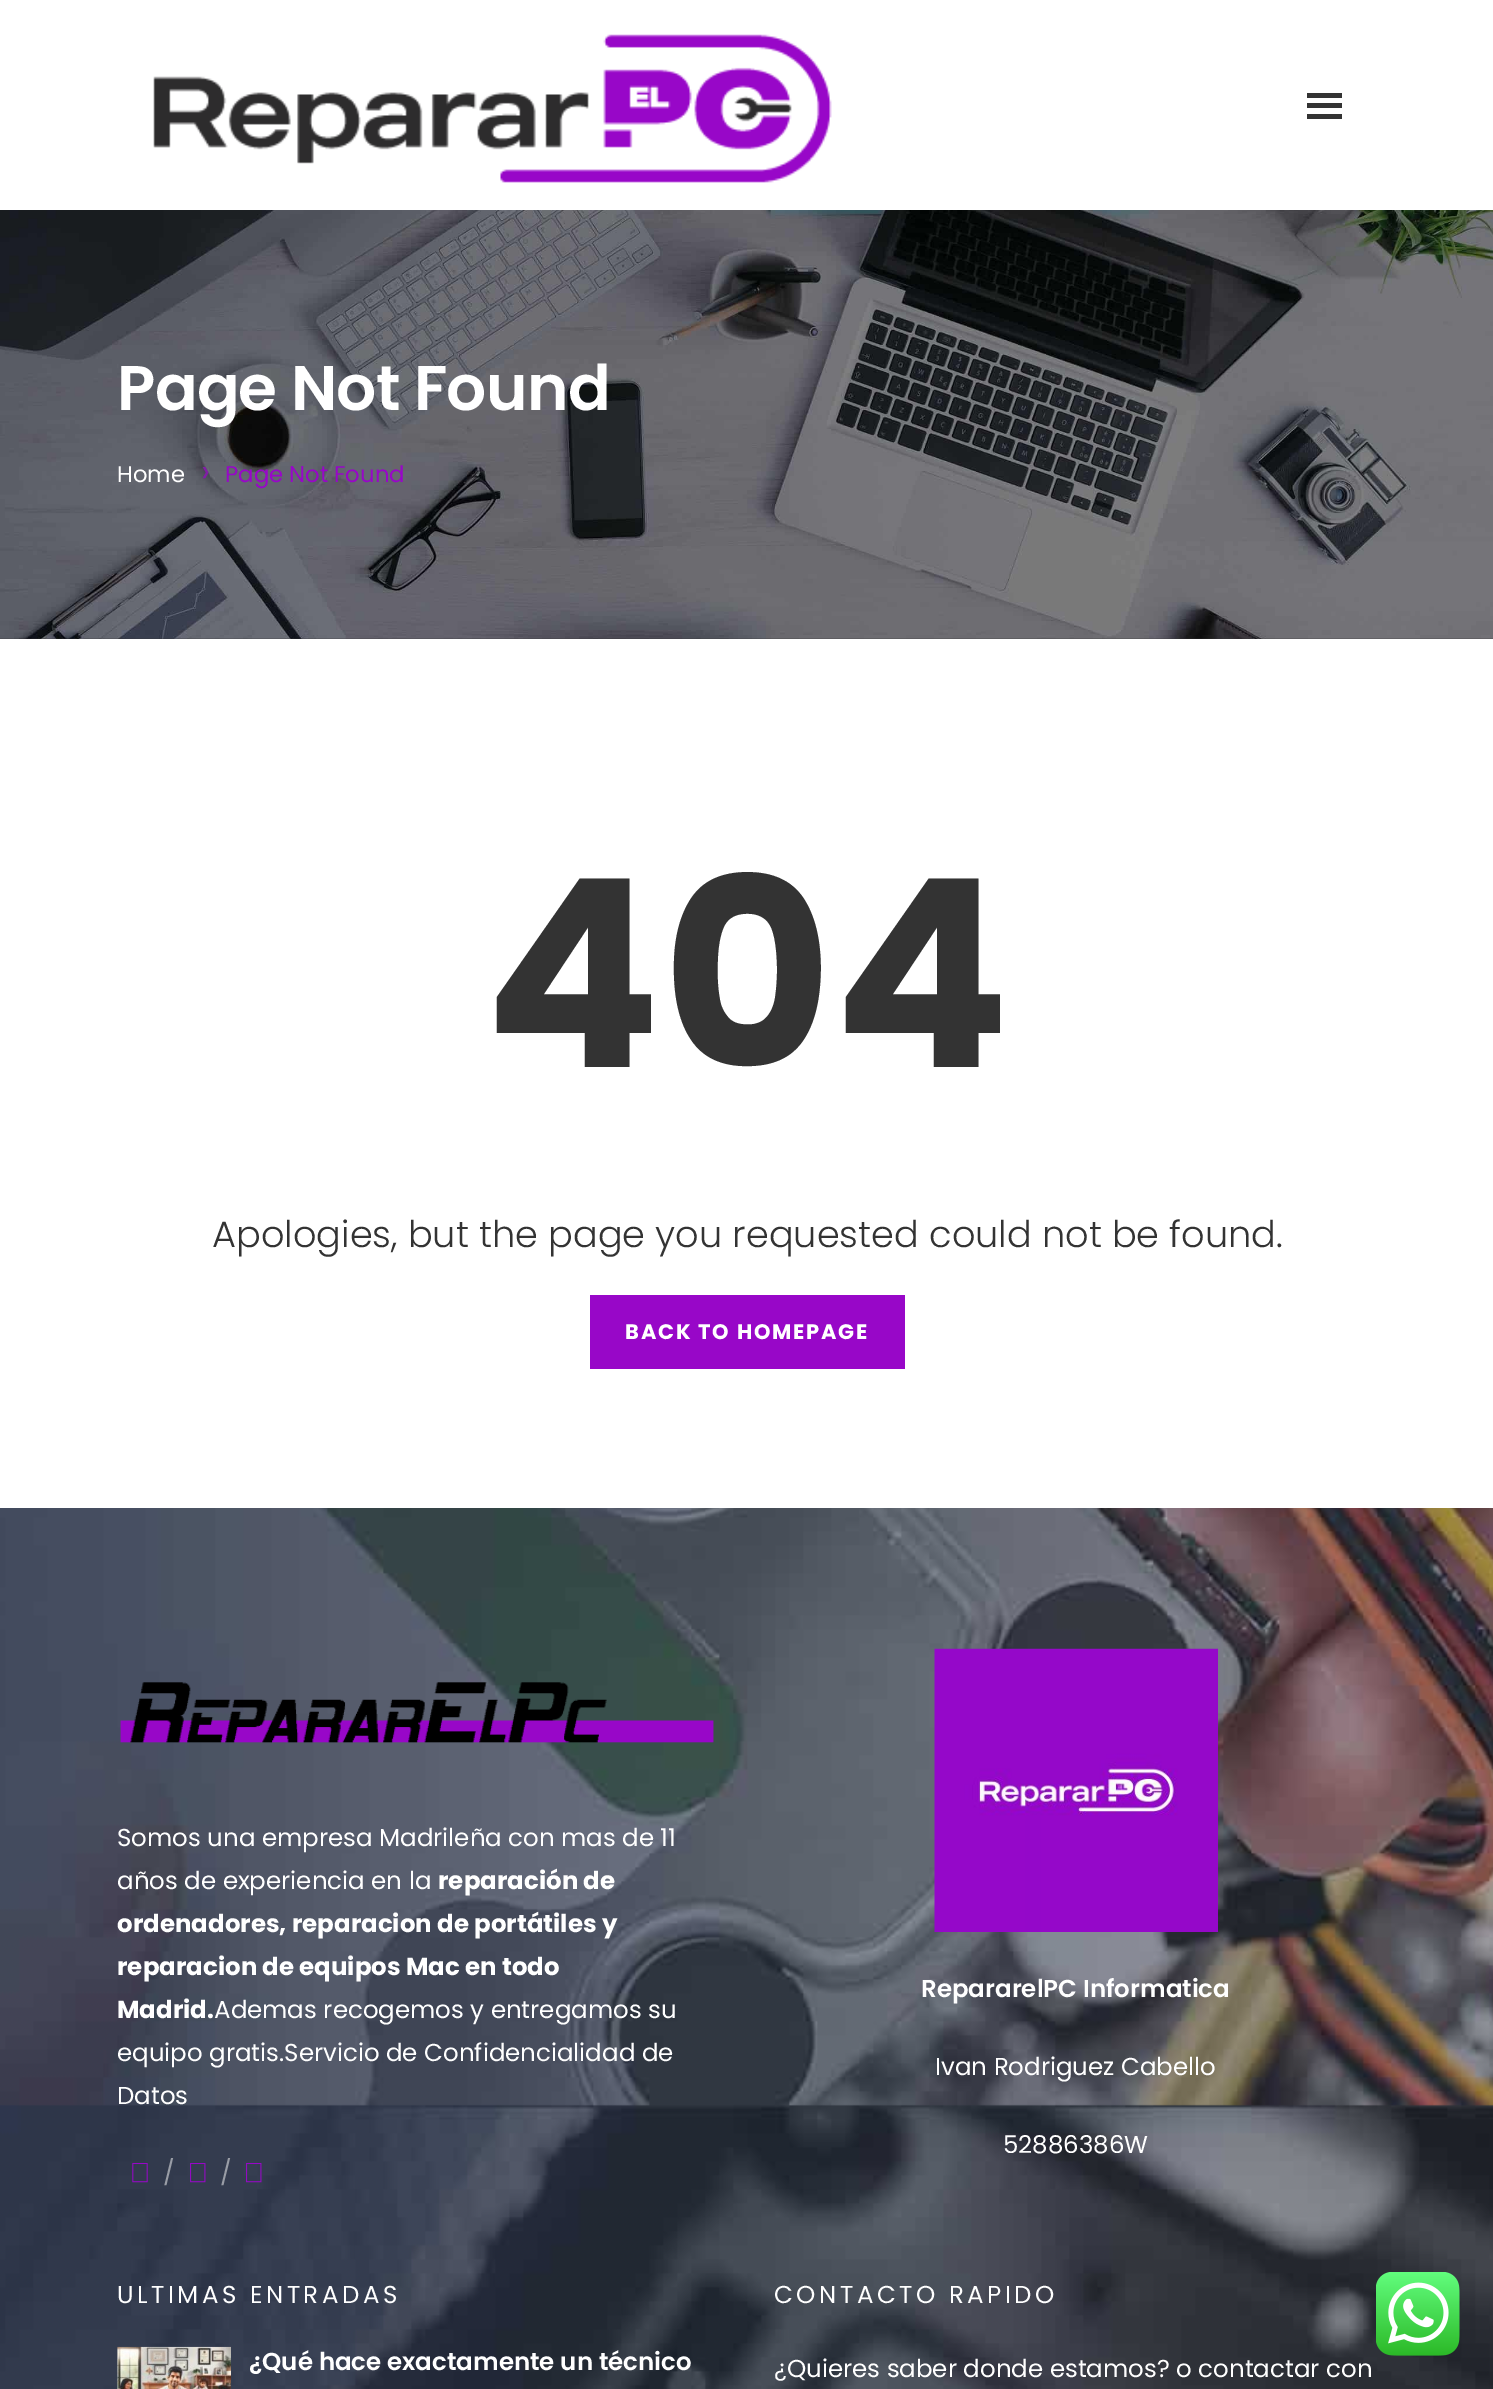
%!PS-Adobe-3.0
%%BoundingBox: 0 0 1493 2389
%%LanguageLevel: 3
%%Pages: 1
%%EndComments
%%BeginProlog
/m { moveto } bind def
/fn { [ exch dup neg 0 0 3 -1 roll 0 0 ] selectfont } def
/tx { moveto show } def
/bx { rectfill } def
/im { 5 dict begin { /h /w /y /x /name } { exch def } forall
  gsave x y translate w h scale
  w h 8 [w 0 0 h 0 0] name (r) file false 3 colorimage grestore end } def
%%EndProlog
%%BeginSetup
<< /PageSize [1493 2389] >> setpagedevice
%%EndSetup
%%Page: 1 1
0 2389 translate 1 -1 scale
4 setmiterlimit
1 setgray
0 0 1493 2389 bx
(image0.raw) 153 34 679 149 im
0.2 setgray
1307 93 35 5 bx
1307 103 35 5 bx
1307 114 35 5 bx
(image1.raw) 0 210 1493 429 im
/Poppins-SemiBold 63 fn
1 setgray
117 410 m -0.75 0 (Page Not Found) ashow
/Poppins-Regular 22.75 fn
(Home) 117 482 tx
/Poppins-Regular 32 fn
0.51 0.114 0.655 setrgbcolor
(›) 201 482 tx
/Poppins-Regular 22.75 fn
0.596 0.027 0.784 setrgbcolor
(Page Not Found) 225 482 tx
/Poppins-Bold 262.5 fn
0.2 setgray
(404) 484 1067 tx
/Poppins-Light 36.75 fn
(Apologies, but the page you requested could not be found.) 212 1247 tx
0.596 0.027 0.784 setrgbcolor
590 1295 315 74 bx
/Poppins-Bold 21 fn
1 setgray
625 1339 m 1.75 0 (BACK TO HOMEPAGE) ashow
(image2.raw) 0 1508 1493 881 im
(image3.raw) 120 1682 594 61 im
/Poppins-Regular 24.5 fn
(Somos una empresa Madrileña con mas de 11) 117 1846 tx
(años de experiencia en la) 117 1889 tx
/Poppins-Bold 24.5 fn
(reparación de) 438 1889 tx
(ordenadores, reparacion de portátiles y) 117 1932 tx
(reparacion de equipos Mac en todo) 117 1975 tx
(Madrid.) 117 2018 tx
/Poppins-Regular 24.5 fn
(Ademas recogemos y entregamos su) 214 2018 tx
(equipo gratis.Servicio de Confidencialidad de) 117 2061 tx
(Datos) 117 2104 tx
(image4.raw) 132 2163 16 20 im
0.6 0.616 0.651 setrgbcolor
(/) 163 2181 tx
(image5.raw) 190 2163 16 20 im
(/) 220 2181 tx
(image6.raw) 246 2163 16 20 im
(image7.raw) 934 1648 284 284 im
/Poppins-SemiBold 24.5 fn
1 setgray
(RepararelPC Informatica) 921 1997 tx
/Poppins-Regular 24.5 fn
(Ivan Rodriguez Cabello) 935 2075 tx
(52886386W) 1003 2153 tx
117 2303 m 3.5 0 (ULTIMAS ENTRADAS) ashow
(image8.raw) 117 2346 114 43 im
/Poppins-SemiBold 24.5 fn
(¿Qué hace exactamente un técnico) 249 2370 tx
/Poppins-Regular 24.5 fn
774 2303 m 3.5 0 (CONTACTO RAPIDO) ashow
(¿Quieres saber donde estamos? o contactar con) 774 2377 tx
(image9.raw) 1376 2272 84 84 im
showpage
%%EOF
